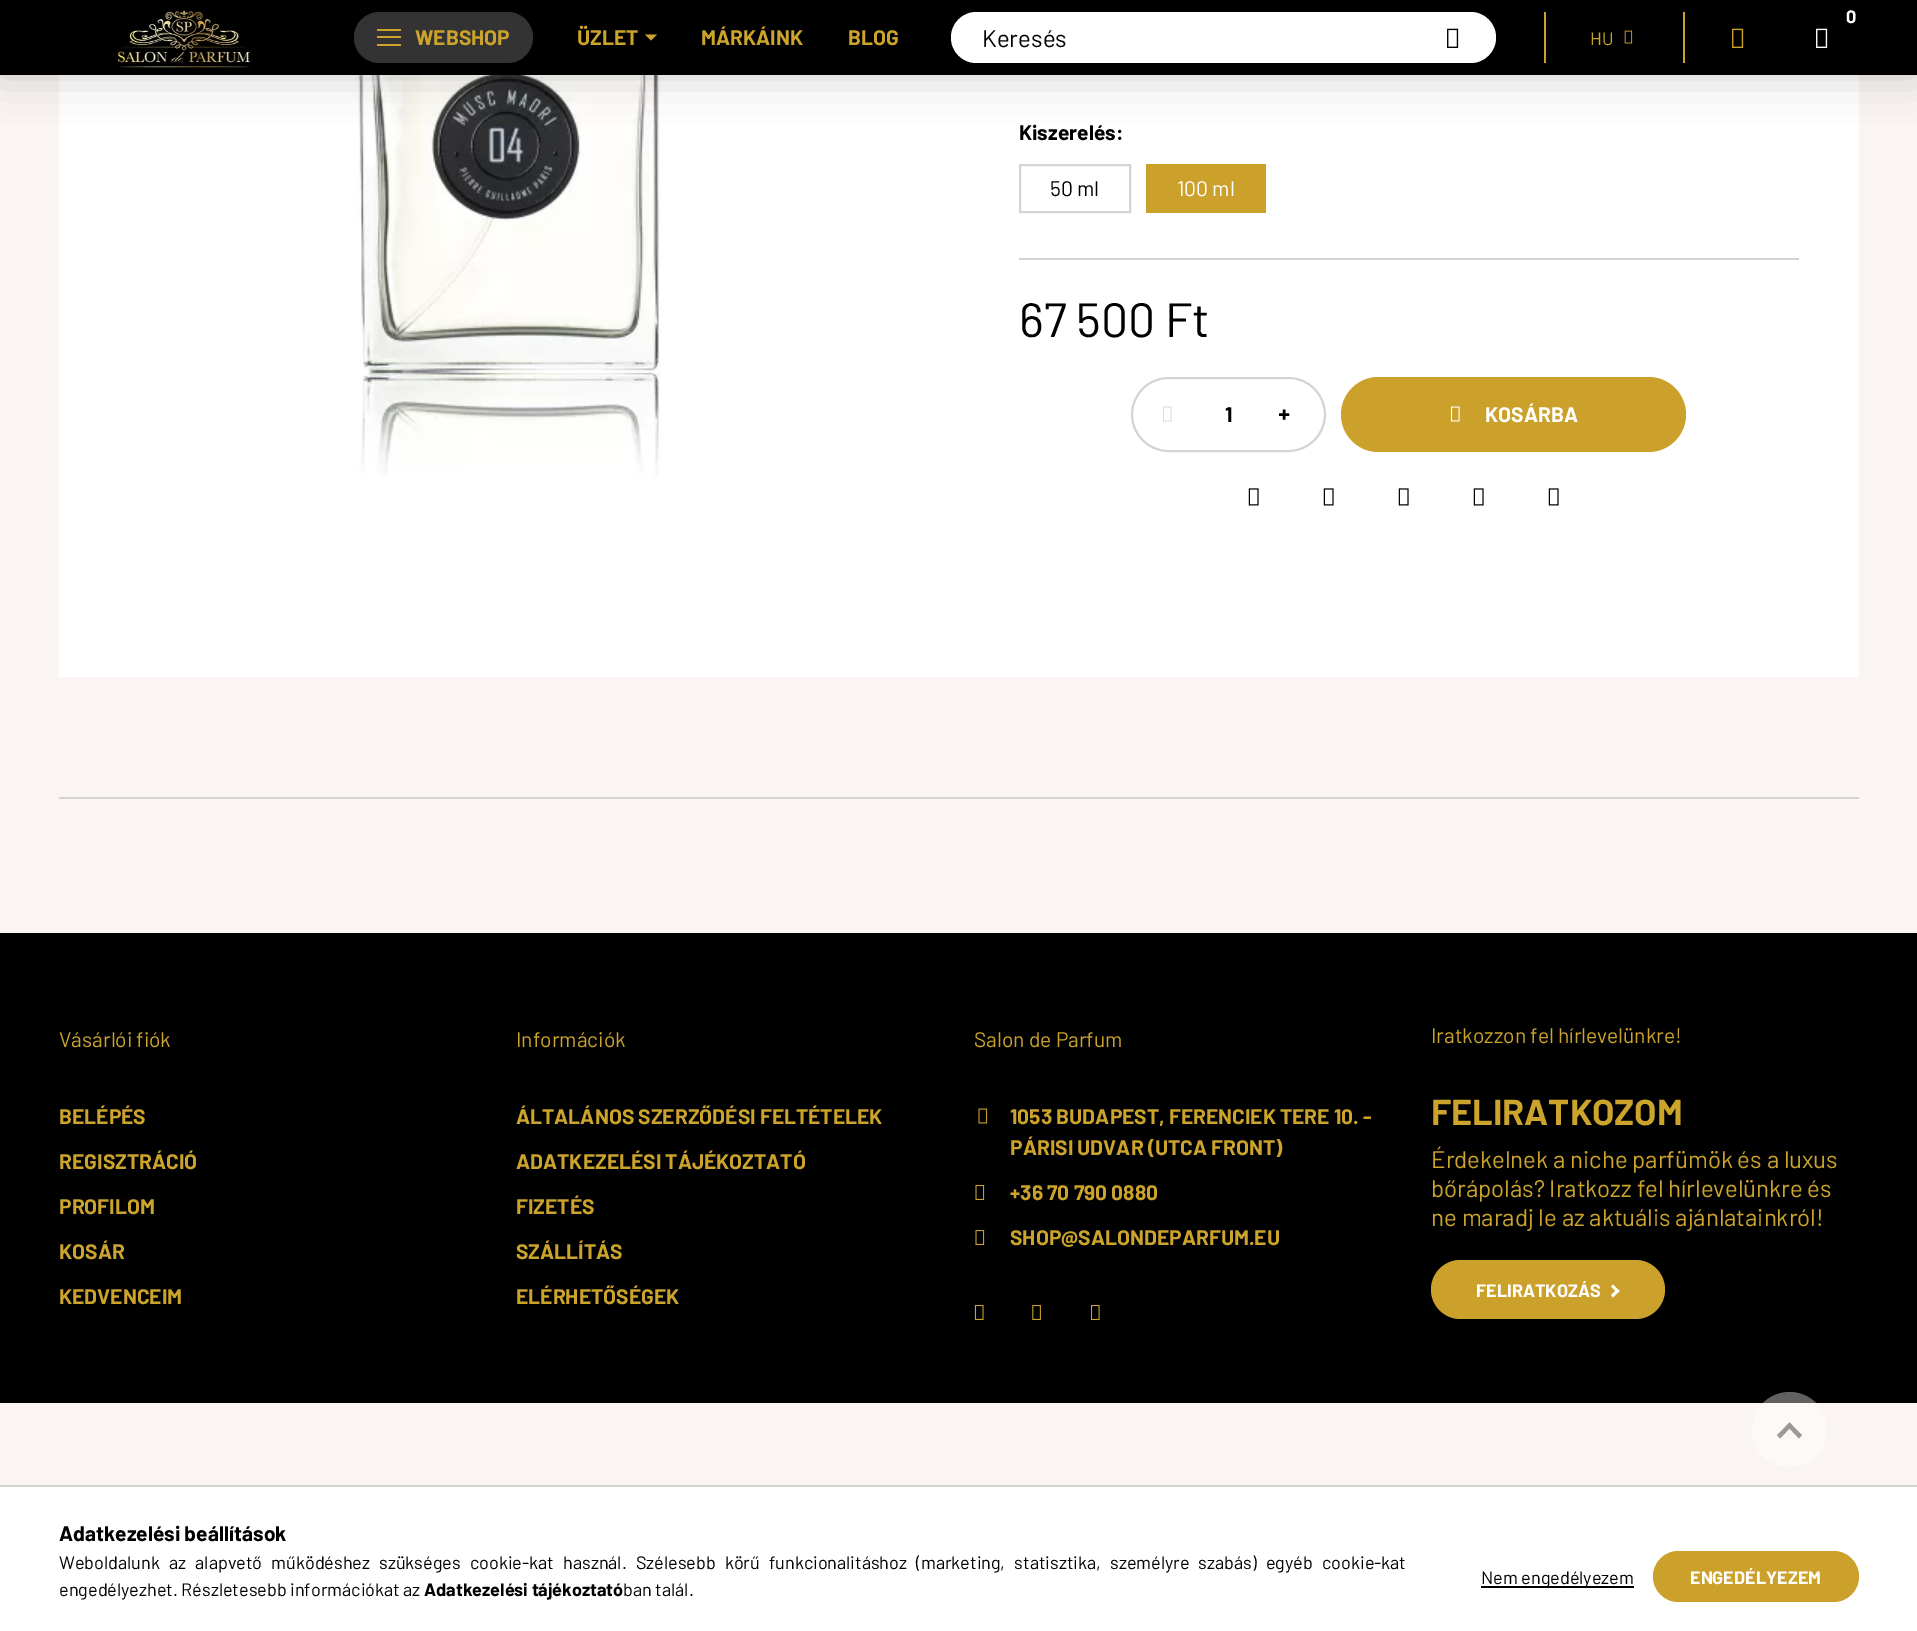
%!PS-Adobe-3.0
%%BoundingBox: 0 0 1917 1631
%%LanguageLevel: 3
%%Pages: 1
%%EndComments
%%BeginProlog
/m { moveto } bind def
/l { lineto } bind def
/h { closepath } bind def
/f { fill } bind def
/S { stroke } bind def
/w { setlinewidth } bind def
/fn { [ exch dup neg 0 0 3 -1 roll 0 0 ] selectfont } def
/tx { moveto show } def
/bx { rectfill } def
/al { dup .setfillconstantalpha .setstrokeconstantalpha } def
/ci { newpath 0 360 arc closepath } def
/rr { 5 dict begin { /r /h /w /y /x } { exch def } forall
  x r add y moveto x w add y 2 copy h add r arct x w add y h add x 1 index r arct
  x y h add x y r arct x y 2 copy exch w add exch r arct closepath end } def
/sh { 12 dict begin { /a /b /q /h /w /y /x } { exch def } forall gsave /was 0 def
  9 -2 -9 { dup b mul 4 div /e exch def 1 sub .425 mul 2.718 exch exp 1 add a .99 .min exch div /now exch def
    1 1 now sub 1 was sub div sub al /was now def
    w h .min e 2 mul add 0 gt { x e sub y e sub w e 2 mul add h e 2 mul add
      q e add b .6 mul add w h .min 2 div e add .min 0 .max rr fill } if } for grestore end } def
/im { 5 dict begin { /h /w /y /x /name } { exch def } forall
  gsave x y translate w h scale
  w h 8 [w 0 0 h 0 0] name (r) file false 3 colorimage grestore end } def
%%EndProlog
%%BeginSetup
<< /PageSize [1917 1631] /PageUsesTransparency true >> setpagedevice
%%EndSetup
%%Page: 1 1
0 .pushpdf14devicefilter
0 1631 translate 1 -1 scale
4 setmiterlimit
0.98 0.961 0.949 setrgbcolor
0 0 1917 1631 bx
1 setgray
59 75 1800 602 bx
(image5.raw) 355 75 307 403 im
0 setgray
0 0 1917 75 0 22.5 0.2 sh
0 0 1917 75 bx
(image0.raw) 117 10 134 58 im
0.2 setgray
354 12 179 51 25.5 rr f
0.8 0.643 0.169 setrgbcolor
377 29 24 2 bx
377 36 24 2 bx
377 44 24 2 bx
/Barlow-Bold 21 fn
(WEBSHOP) 415 45 tx
(ÜZLET) 577 45 tx
645 34.5 m 657 34.5 l 651 40.5 l h f
(MÁRKÁINK) 701 45 tx
(BLOG) 848 45 tx
/Barlow-Bold 18 fn
1 setgray
(0) 1846 23 tx
(image1.raw) 1816 28 12 20 im
951 12 545 51 25.5 rr f
/Barlow-Regular 24 fn
0 setgray
(Keresés) 982 47 tx
(image2.raw) 1447 28 12 20 im
0.8 0.643 0.169 setrgbcolor
1683 12 2 51 bx
1544 12 2 51 bx
/Barlow-Regular 18 fn
(HU) 1590 45 tx
(image3.raw) 1624 30 9 14 im
(image4.raw) 1732 28 12 20 im
0.835 0.831 0.831 setrgbcolor
1019 258 780 2 bx
/Barlow-Bold 21 fn
0 setgray
(Kiszerelés:) 1019 140 tx
0.835 0.831 0.831 setrgbcolor
2 w
1020 165 110 47 rectstroke
/Barlow-Regular 21 fn
0 setgray
(50 ml) 1050 196 tx
0.8 0.631 0.169 setrgbcolor
1146 164 120 49 bx
1 setgray
(100 ml) 1177 196 tx
/Barlow-Regular 48 fn
0 setgray
(67 500 Ft) 1019 337 tx
0.835 0.831 0.831 setrgbcolor
1132 378 193 73 36.5 rr S
(image6.raw) 1163 406 9 16 im
/Barlow-Bold 21 fn
0 setgray
(1) 1225 422 tx
/NotoSans-Black 21 fn
(+) 1278 422 tx
0.8 0.631 0.169 setrgbcolor
1341 377 345 75 37.5 rr f
(image7.raw) 1450 406 10 16 im
/Barlow-Bold 21 fn
1 setgray
(KOSÁRBA) 1485 422 tx
(image8.raw) 1248 488 11 18 im
(image8.raw) 1323 488 11 18 im
(image8.raw) 1398 488 11 18 im
(image8.raw) 1473 488 11 18 im
(image8.raw) 1548 488 11 18 im
0.835 0.831 0.831 setrgbcolor
59 797 1800 2 bx
0 setgray
0 933 1917 470 bx
/Barlow-Regular 21 fn
0.8 0.643 0.169 setrgbcolor
(Vásárlói fiók) 59 1047 tx
/Barlow-Bold 21 fn
(BELÉPÉS) 59 1124 tx
(REGISZTRÁCIÓ) 59 1169 tx
(PROFILOM) 59 1214 tx
(KOSÁR) 59 1259 tx
(KEDVENCEIM) 59 1304 tx
/Barlow-Regular 21 fn
(Információk) 516 1047 tx
/Barlow-Bold 21 fn
(ÁLTALÁNOS SZERZŐDÉSI FELTÉTELEK) 516 1124 tx
(ADATKEZELÉSI TÁJÉKOZTATÓ) 516 1169 tx
(FIZETÉS) 516 1214 tx
(SZÁLLÍTÁS) 516 1259 tx
(ELÉRHETŐSÉGEK) 516 1304 tx
/Barlow-Regular 21 fn
(Salon de Parfum) 974 1047 tx
(image9.raw) 978 1108 10 16 im
/Barlow-Bold 21 fn
(1053 BUDAPEST, FERENCIEK TERE 10. -) 1010 1124 tx
(PÁRISI UDVAR \(UTCA FRONT\)) 1010 1155 tx
(image10.raw) 975 1185 10 15 im
(+36 70 790 0880) 1010 1200 tx
(image10.raw) 975 1230 10 15 im
(SHOP@SALONDEPARFUM.EU) 1010 1245 tx
(image11.raw) 974 1305 10 15 im
(image12.raw) 1032 1305 9 15 im
(image13.raw) 1090 1305 10 15 im
/Barlow-Regular 21 fn
(Iratkozzon fel hírlevelünkre!) 1431 1043 tx
/Barlow-Bold 36 fn
(FELIRATKOZOM) 1431 1125 tx
/Barlow-Regular 24 fn
(Érdekelnek a niche parfümök és a luxus) 1431 1168 tx
(bőrápolás? Iratkozz fel hírlevelünkre és) 1431 1197 tx
(ne maradj le az aktuális ajánlatainkról!) 1431 1226 tx
0.8 0.631 0.169 setrgbcolor
1431 1260 234 59 29.5 rr f
/Barlow-Bold 18 fn
1 setgray
(FELIRATKOZÁS) 1476 1297 tx
1611 1295 m 1617.5 1289 l 1619.5 1291 l 1613 1297.5 l h f
1613 1284.5 m 1619.5 1291 l 1617.5 1293 l 1611 1286.5 l h f
0.38 al
1789.5 1429.5 37.5 ci f
1 al
0.612 0.6 0.592 setrgbcolor
1799 1438.5 m 1786.5 1425.5 l 1789.5 1422.5 l 1802 1435 l h f
0.98 0.961 0.949 setrgbcolor
1787 1437.5 m 1787 1433 l 1791.5 1433 l 1791.5 1437.5 l h f
0.612 0.6 0.592 setrgbcolor
1777 1435 m 1789.5 1422.5 l 1792.5 1425.5 l 1780 1438.5 l h f
1 setgray
0 1487 1917 144 bx
0.835 0.831 0.831 setrgbcolor
0 1485 1917 2 bx
/Barlow-Bold 21 fn
0 setgray
(Adatkezelési beállítások) 59 1541 tx
/Barlow-Regular 18 fn
59 1569 m 5.6 0 32 (Weboldalunk az alapvető működéshez szükséges cookie-kat használ. Szélesebb körű funkcionalitáshoz \(marketing, statisztika, személyre szabás\) egyéb cookie-kat) widthshow
(engedélyezhet. Részletesebb információkat az) 59 1596 tx
/Barlow-Bold 18 fn
(Adatkezelési tájékoztató) 424 1596 tx
/Barlow-Regular 18 fn
(ban talál.) 623 1596 tx
1481 1586 153 2 bx
(Nem engedélyezem) 1481 1584 tx
0.8 0.631 0.169 setrgbcolor
1653 1551 206 51 25.5 rr f
/Barlow-Bold 18 fn
1 setgray
(ENGEDÉLYEZEM) 1690 1584 tx
.poppdf14devicefilter showpage
%%EOF
